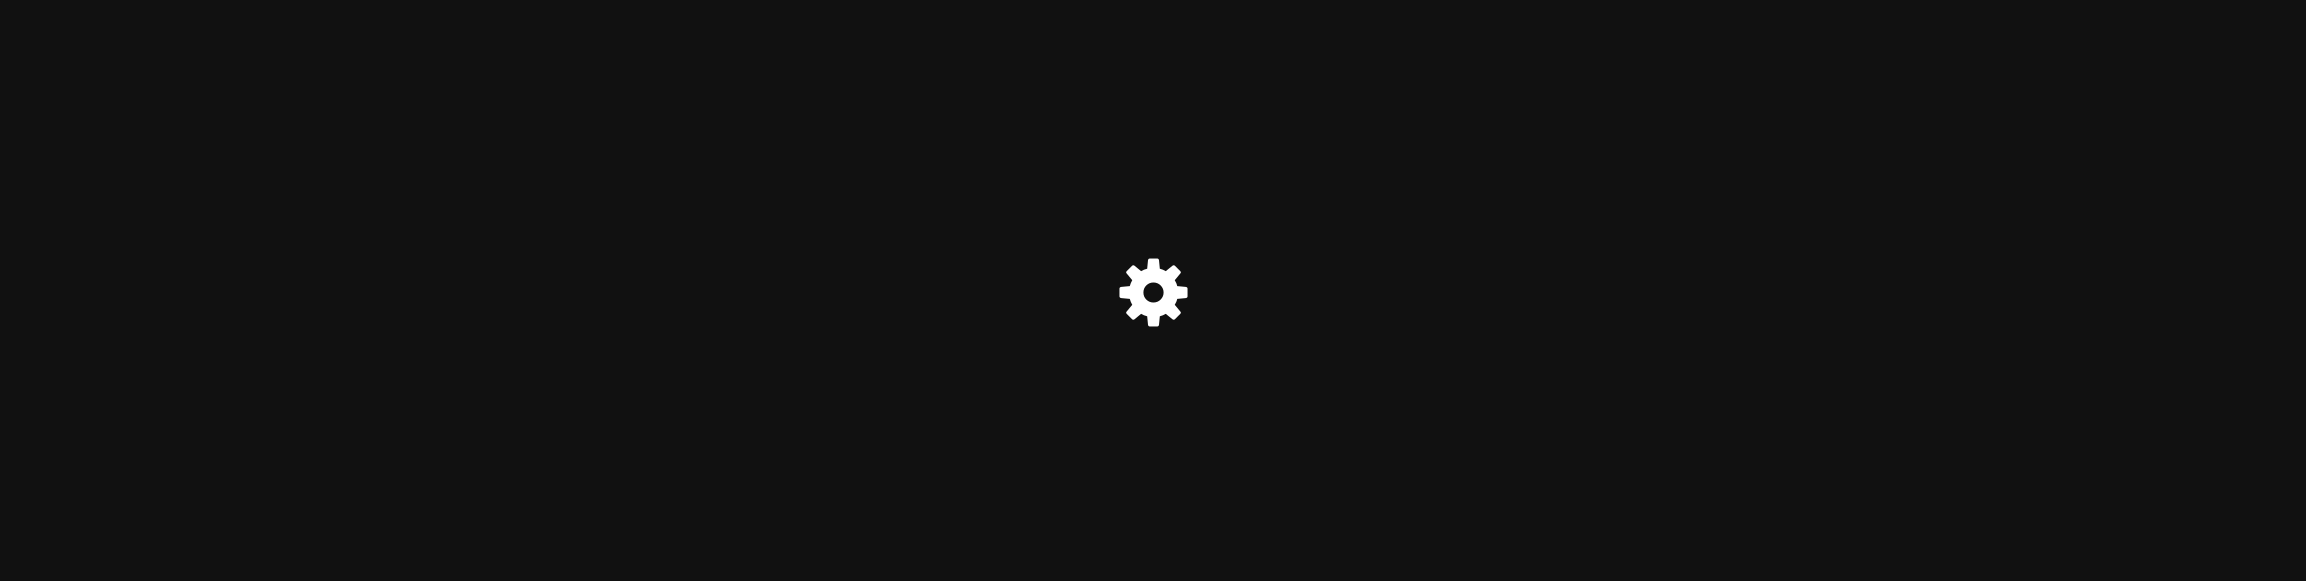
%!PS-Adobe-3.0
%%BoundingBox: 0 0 2306 581
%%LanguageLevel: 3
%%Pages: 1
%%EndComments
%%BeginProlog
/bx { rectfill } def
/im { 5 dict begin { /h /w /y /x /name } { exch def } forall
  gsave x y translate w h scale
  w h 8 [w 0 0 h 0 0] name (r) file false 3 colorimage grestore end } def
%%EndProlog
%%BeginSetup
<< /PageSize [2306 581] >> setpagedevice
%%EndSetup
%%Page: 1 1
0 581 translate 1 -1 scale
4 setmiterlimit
0.067 setgray
0 0 2306 581 bx
(image0.raw) 1119 258 69 69 im
showpage
%%EOF
